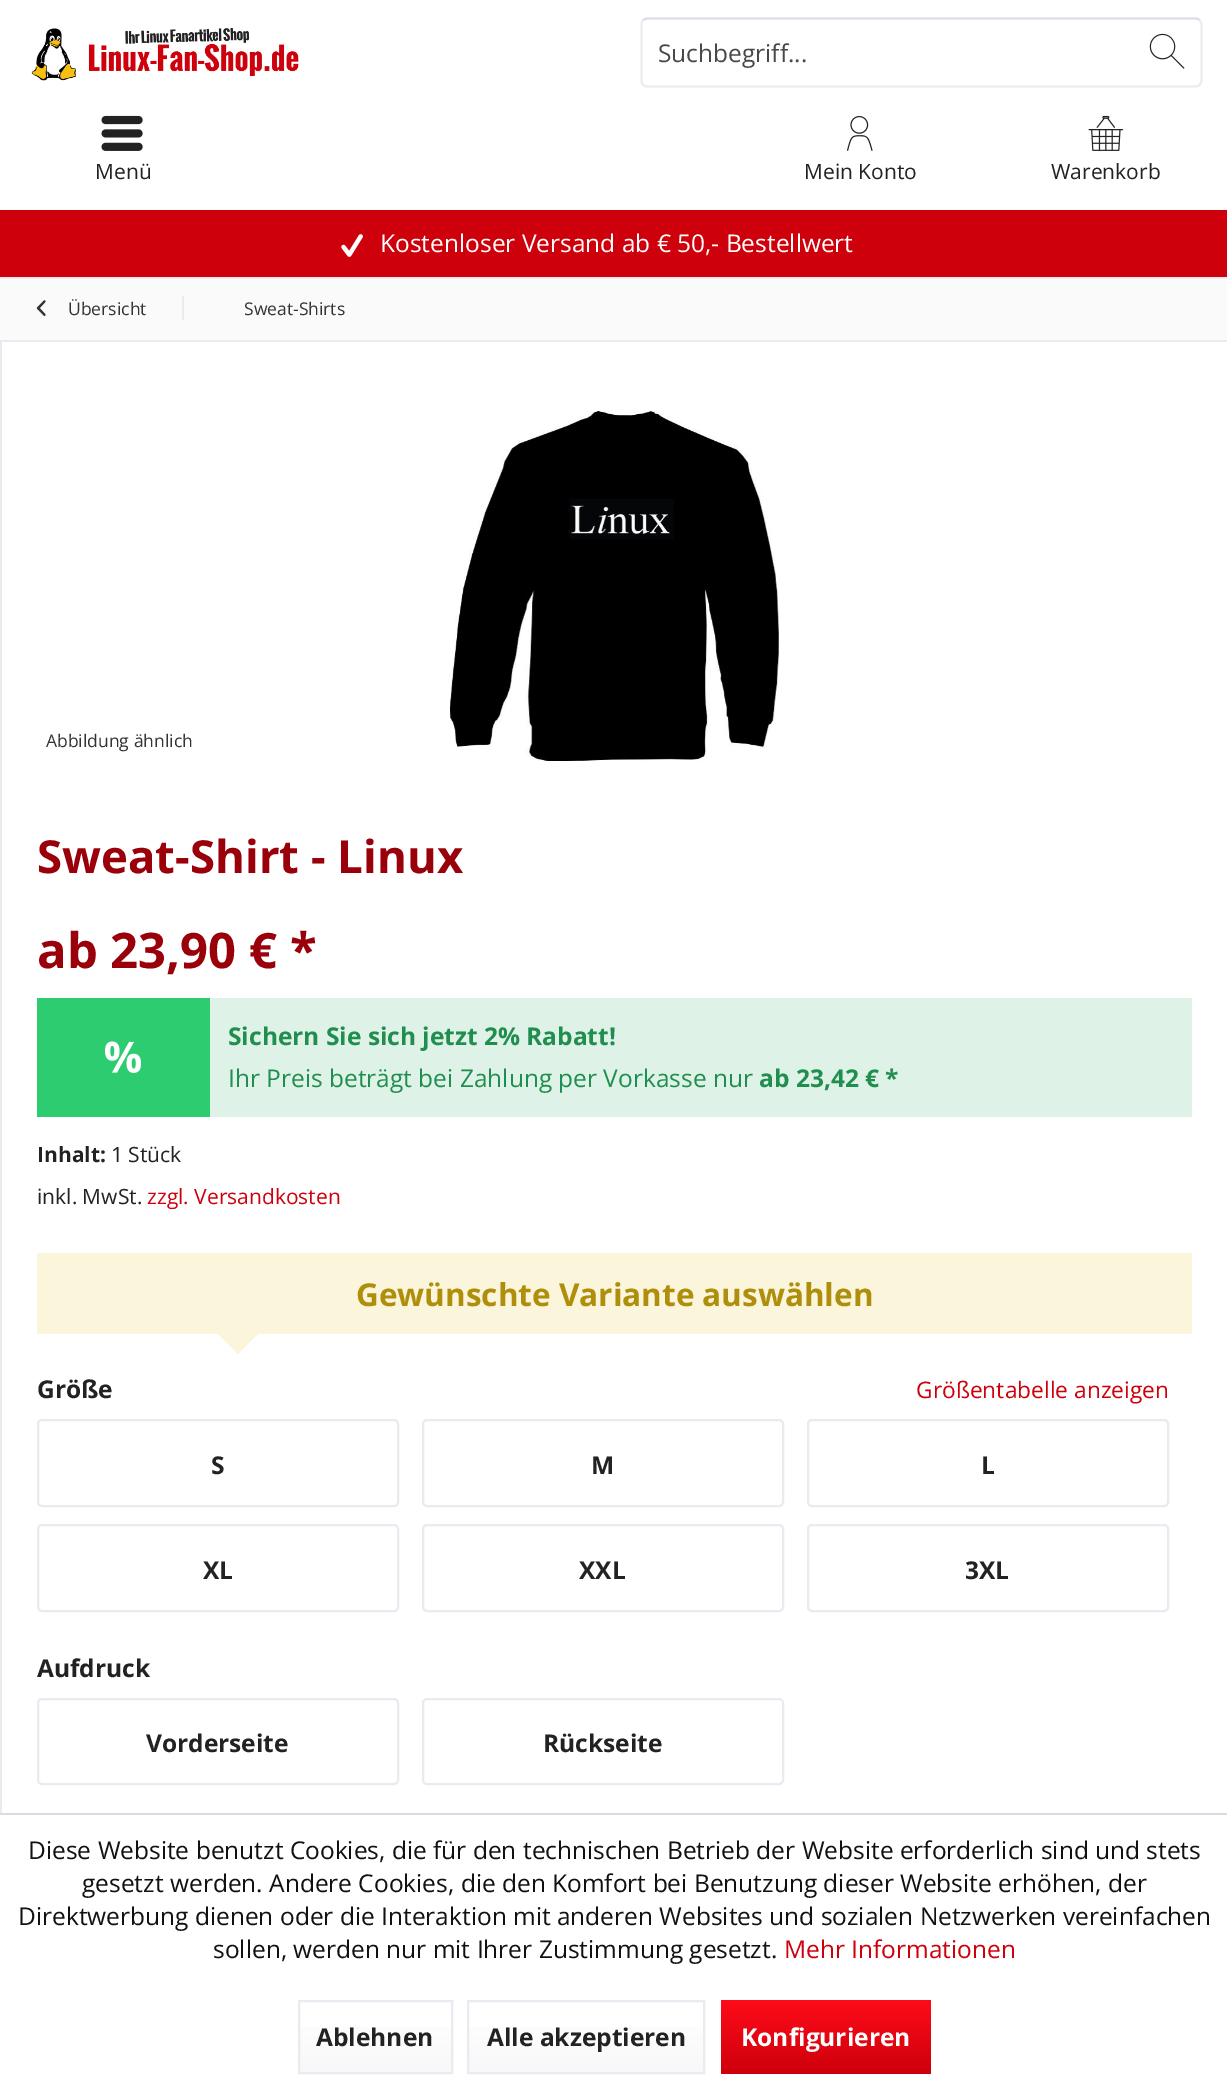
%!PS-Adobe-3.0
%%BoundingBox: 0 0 1227 2091
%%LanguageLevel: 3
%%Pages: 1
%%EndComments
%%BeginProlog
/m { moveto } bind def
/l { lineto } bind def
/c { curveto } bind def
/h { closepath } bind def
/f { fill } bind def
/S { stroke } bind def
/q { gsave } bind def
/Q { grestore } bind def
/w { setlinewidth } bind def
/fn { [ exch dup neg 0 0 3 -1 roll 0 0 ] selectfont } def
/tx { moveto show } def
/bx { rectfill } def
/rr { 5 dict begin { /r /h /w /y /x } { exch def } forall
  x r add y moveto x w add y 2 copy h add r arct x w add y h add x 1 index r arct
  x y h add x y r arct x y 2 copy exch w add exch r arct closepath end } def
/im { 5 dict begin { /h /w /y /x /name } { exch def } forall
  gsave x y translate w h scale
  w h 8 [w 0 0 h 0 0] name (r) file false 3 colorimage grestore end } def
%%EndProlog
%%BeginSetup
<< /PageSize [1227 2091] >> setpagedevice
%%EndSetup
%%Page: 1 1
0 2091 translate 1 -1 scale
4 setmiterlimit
1 setgray
0 0 1227 2091 bx
(image0.raw) 31 28 268 53 im
0.859 0.859 0.898 setrgbcolor
1.8 w
643 20 m 644.5 19 646 18.5 647.5 18.5 c 1195 18.5 l 1197 18.5 1198.5 19 1199.5 20 c S
0.918 0.918 0.941 setrgbcolor
1199.5 20 m 1200.5 21.5 1201.5 23 1201.5 24.5 c 1201.5 80.5 l 1201.5 82 1200.5 83.5 1199.5 85 c 1198.5 86 1197 86.5 1195 86.5 c 647.5 86.5 l 646 86.5 644.5 86 643 85 c 642 83.5 641.5 82 641.5 80.5 c 641.5 24.5 l 641.5 23 642 21.5 643 20 c S
/OpenSans-Regular 24.5 fn
0.282 setgray
(Suchbegriff...) 658 62 tx
(image1.raw) 1149 33 36 36 im
(image2.raw) 101 115 42 36 im
/OpenSans-Regular 21 fn
0.133 setgray
(Menü) 95 179 tx
(image3.raw) 847 116 26 35 im
(Mein Konto) 804 179 tx
(image4.raw) 1088 115 36 36 im
(Warenkorb) 1051 179 tx
0.804 0 0.047 setrgbcolor
0 210 1227 67 bx
(image5.raw) 341 234 22 23 im
/OpenSans-Regular 24.5 fn
1 setgray
(Kostenloser Versand ab € 50,- Bestellwert) 380 252 tx
0.98 setgray
0 279 1227 61 bx
0.918 0.918 0.941 setrgbcolor
0 277 1227 2 bx
(image6.raw) 36 300 10 16 im
/OpenSans-Regular 17.5 fn
0.2 setgray
(Übersicht) 68 315 tx
0.918 0.918 0.941 setrgbcolor
182 296 2 24 bx
0.2 setgray
(Sweat-Shirts) 244 315 tx
0.918 0.918 0.941 setrgbcolor
0 340 1227 2 bx
0 340 2 1473 bx
0.2 setgray
(Abbildung ähnlich) 46 747 tx
(image7.raw) 450 411 329 350 im
/OpenSans-Bold 45.5 fn
0.604 0 0.035 setrgbcolor
(Sweat-Shirt - Linux) 37 873 tx
/OpenSans-Bold 49 fn
(ab 23,90 € *) 37 968 tx
0.871 0.949 0.906 setrgbcolor
210 998 982 119 bx
0.18 0.8 0.443 setrgbcolor
37 998 173 119 bx
(image8.raw) 105 1041 37 32 im
/OpenSans-Bold 24.5 fn
0.125 0.557 0.306 setrgbcolor
(Sichern Sie sich jetzt 2% Rabatt!) 228 1045 tx
/OpenSans-Regular 24.5 fn
(Ihr Preis beträgt bei Zahlung per Vorkasse nur) 228 1087 tx
/OpenSans-Bold 24.5 fn
(ab 23,42 € *) 759 1087 tx
/OpenSans-Bold 21 fn
0.133 setgray
(Inhalt:) 37 1162 tx
/OpenSans-Regular 21 fn
(1 Stück) 111 1162 tx
(inkl. MwSt.) 37 1204 tx
0.804 0 0.047 setrgbcolor
(zzgl. Versandkosten) 147 1204 tx
0.984 0.961 0.859 setrgbcolor
37 1253 1155 81 bx
/OpenSans-Bold 31.5 fn
0.682 0.557 0.039 setrgbcolor
(Gewünschte Variante auswählen) 356 1306 tx
0.984 0.961 0.859 setrgbcolor
259 1333 m 238 1354 l 217 1333 l 238 1312 l h f
258.5 1332.5 m 237.5 1353.5 l 236.5 1352.5 l 257.5 1331.5 l h f
239 1352.5 m 237.5 1353.5 l 216.5 1332.5 l 218 1331.5 l h f
/OpenSans-Bold 24.5 fn
0.133 setgray
(Größe) 37 1398 tx
/OpenSans-Regular 22.75 fn
0.804 0 0.047 setrgbcolor
(Größentabelle anzeigen) 916 1398 tx
0.918 0.918 0.941 setrgbcolor
2 w
38 1420 360 86 4 rr S
/OpenSans-Bold 24.5 fn
0.133 setgray
(S) 211 1474 tx
0.918 0.918 0.941 setrgbcolor
423 1420 360 86 4 rr S
0.133 setgray
(M) 591 1474 tx
0.918 0.918 0.941 setrgbcolor
808 1420 360 86 4 rr S
0.133 setgray
(L) 981 1474 tx
0.918 0.918 0.941 setrgbcolor
38 1525 360 86 4 rr S
0.133 setgray
(XL) 203 1579 tx
0.918 0.918 0.941 setrgbcolor
423 1525 360 86 4 rr S
0.133 setgray
(XXL) 579 1579 tx
0.918 0.918 0.941 setrgbcolor
808 1525 360 86 4 rr S
0.133 setgray
(3XL) 965 1579 tx
(Aufdruck) 37 1677 tx
0.918 0.918 0.941 setrgbcolor
38 1699 360 85 4 rr S
0.133 setgray
(Vorderseite) 146 1752 tx
0.918 0.918 0.941 setrgbcolor
423 1699 360 85 4 rr S
0.133 setgray
(Rückseite) 543 1752 tx
0.855 0.855 0.898 setrgbcolor
0 1813 1227 2 bx
/OpenSans-Regular 24.5 fn
0.067 setgray
(Diese Website benutzt Cookies, die für den technischen Betrieb der Website erforderlich sind und stets) 28 1859 tx
(gesetzt werden. Andere Cookies, die den Komfort bei Benutzung dieser Website erhöhen, der) 82 1892 tx
(Direktwerbung dienen oder die Interaktion mit anderen Websites und sozialen Netzwerken vereinfachen) 18 1925 tx
(sollen, werden nur mit Ihrer Zustimmung gesetzt.) 213 1958 tx
0.804 0 0.047 setrgbcolor
(Mehr Informationen) 784 1958 tx
q 300 2027 m 451 2027 l 451 2072 l 300 2072 l h clip newpath
<< /ShadingType 2 /ColorSpace /DeviceRGB /Coords [375 2002 375 2072] /Extend [true true] /Function << /FunctionType 2 /Domain [0 1] /C0 [1 1 1] /C1 [0.973 0.973 0.98] /N 1 >> >> shfill Q
0.918 0.918 0.941 setrgbcolor
299 2001 153 72 rectstroke
/OpenSans-Bold 24.5 fn
0.133 setgray
(Ablehnen) 316 2046 tx
q 469 2027 m 703 2027 l 703 2072 l 469 2072 l h clip newpath
<< /ShadingType 2 /ColorSpace /DeviceRGB /Coords [586 2002 586 2072] /Extend [true true] /Function << /FunctionType 2 /Domain [0 1] /C0 [1 1 1] /C1 [0.973 0.973 0.98] /N 1 >> >> shfill Q
0.918 0.918 0.941 setrgbcolor
468 2001 236 72 rectstroke
0.133 setgray
(Alle akzeptieren) 487 2046 tx
q 721 2000 m 931 2000 l 931 2074 l 721 2074 l h clip newpath
<< /ShadingType 2 /ColorSpace /DeviceRGB /Coords [826 2000 826 2074] /Extend [true true] /Function << /FunctionType 2 /Domain [0 1] /C0 [1 0.043 0.098] /C1 [0.804 0 0.047] /N 1 >> >> shfill Q
1 setgray
(Konfigurieren) 741 2046 tx
showpage
%%EOF
